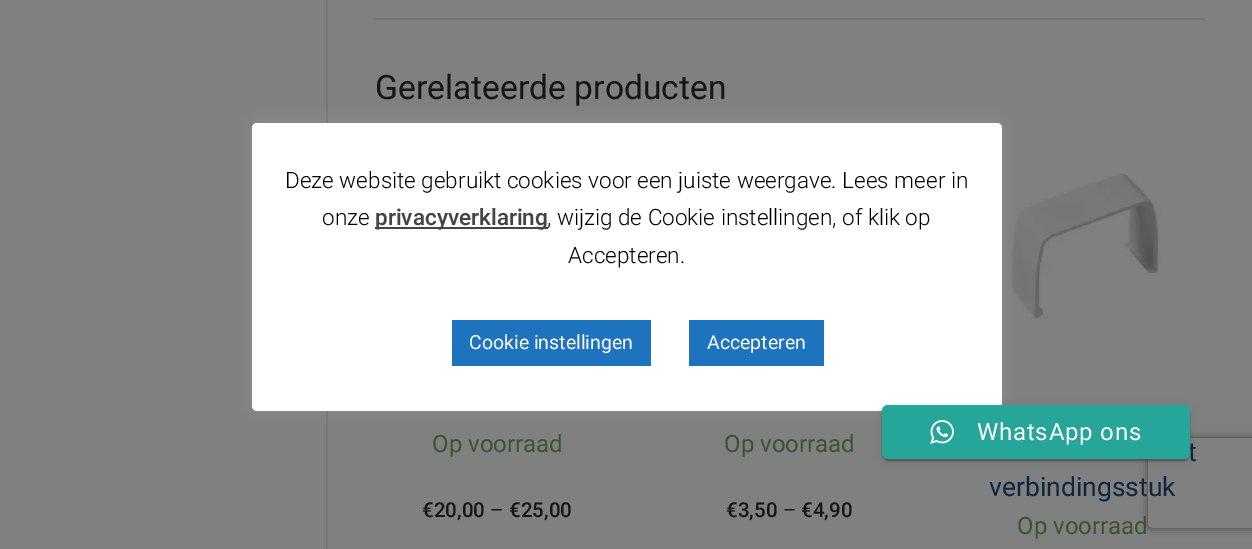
%!PS-Adobe-3.0
%%BoundingBox: 0 0 1252 549
%%LanguageLevel: 3
%%Pages: 1
%%EndComments
%%BeginProlog
/m { moveto } bind def
/l { lineto } bind def
/c { curveto } bind def
/h { closepath } bind def
/f { fill } bind def
/q { gsave } bind def
/Q { grestore } bind def
/fn { [ exch dup neg 0 0 3 -1 roll 0 0 ] selectfont } def
/tx { moveto show } def
/bx { rectfill } def
/al { dup .setfillconstantalpha .setstrokeconstantalpha } def
/rr { 5 dict begin { /r /h /w /y /x } { exch def } forall
  x r add y moveto x w add y 2 copy h add r arct x w add y h add x 1 index r arct
  x y h add x y r arct x y 2 copy exch w add exch r arct closepath end } def
/sh { 12 dict begin { /a /b /q /h /w /y /x } { exch def } forall gsave /was 0 def
  9 -2 -9 { dup b mul 4 div /e exch def 1 sub .425 mul 2.718 exch exp 1 add a .99 .min exch div /now exch def
    1 1 now sub 1 was sub div sub al /was now def
    w h .min e 2 mul add 0 gt { x e sub y e sub w e 2 mul add h e 2 mul add
      q e add b .6 mul add w h .min 2 div e add .min 0 .max rr fill } if } for grestore end } def
/im { 5 dict begin { /h /w /y /x /name } { exch def } forall
  gsave x y translate w h scale
  w h 8 [w 0 0 h 0 0] name (r) file false 3 colorimage grestore end } def
%%EndProlog
%%BeginSetup
<< /PageSize [1252 549] /PageUsesTransparency true >> setpagedevice
%%EndSetup
%%Page: 1 1
0 .pushpdf14devicefilter
0 549 translate 1 -1 scale
4 setmiterlimit
0.502 setgray
0 0 1252 549 bx
0.459 0.463 0.467 setrgbcolor
326 0 2 549 bx
375 18 830 2 bx
/Roboto-Regular 33.6 fn
0.086 setgray
(Gerelateerde producten) 375 99 tx
/Roboto-Regular 24 fn
0.235 0.322 0.196 setrgbcolor
(Op voorraad) 432 452 tx
/Roboto-Medium 20.5 fn
0.086 setgray
(€20,00) 422 517 tx
/Roboto-Regular 20.5 fn
(–) 490 517 tx
/Roboto-Medium 20.5 fn
(€25,00) 509 517 tx
/Roboto-Regular 24 fn
0.235 0.322 0.196 setrgbcolor
(Op voorraad) 724 452 tx
/Roboto-Medium 20.5 fn
0.086 setgray
(€3,50) 726 517 tx
/Roboto-Regular 20.5 fn
(–) 783 517 tx
/Roboto-Medium 20.5 fn
(€4,90) 801 517 tx
(image0.raw) 1011 172 150 147 im
/Roboto-Regular 26.5 fn
0.059 0.149 0.231 setrgbcolor
(t) 1188 461 tx
(verbindingsstuk) 989 496 tx
/Roboto-Regular 24 fn
0.235 0.322 0.196 setrgbcolor
(Op voorraad) 1017 534 tx
0.675 0.671 0.671 setrgbcolor
252 122 750 288 5 7.5 0.3 sh
1 setgray
252 123 750 288 5 rr f
/Roboto-Light 22.5 fn
0 setgray
(Deze website gebruikt cookies voor een juiste weergave. Lees meer in) 285 188 tx
(onze) 322 225 tx
0.267 setgray
375 227 173 2 bx
/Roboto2-Medium 22.5 fn
(privacyverklaring) 375 225 tx
/Roboto-Light 22.5 fn
0 setgray
(, wijzig de Cookie instellingen, of klik op) 547 225 tx
(Accepteren.) 568 263 tx
0.118 0.451 0.745 setrgbcolor
452 320 199 46 bx
/Roboto-Regular 19.5 fn
1 setgray
(Cookie instellingen) 469 349 tx
0.118 0.451 0.745 setrgbcolor
689 320 135 46 bx
1 setgray
(Accepteren) 707 349 tx
0 setgray
885 413 302 48 3 1 0.2 sh
882 407 308 54 6 4 0.12 sh
882 408 308 54 6 1.5 0.14 sh
q
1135 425 m 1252 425 l 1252 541 l 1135 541 l h 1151 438 m 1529 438 l 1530.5 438 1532 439.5 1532 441 c 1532 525 l 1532 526.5 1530.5 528 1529 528 c 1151 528 l 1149.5 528 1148 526.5 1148 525 c 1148 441 l 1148 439.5 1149.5 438 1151 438 c h eoclip newpath
0.251 setgray
1148 438 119 90 3 4 1 sh
Q
0.149 0.651 0.604 setrgbcolor
882 405 308 54 6 rr f
(image1.raw) 930 420 24 24 im
/Roboto-Regular 24 fn
1 setgray
977 440 m 0.75 0 (WhatsApp ons) ashow
.poppdf14devicefilter showpage
%%EOF
